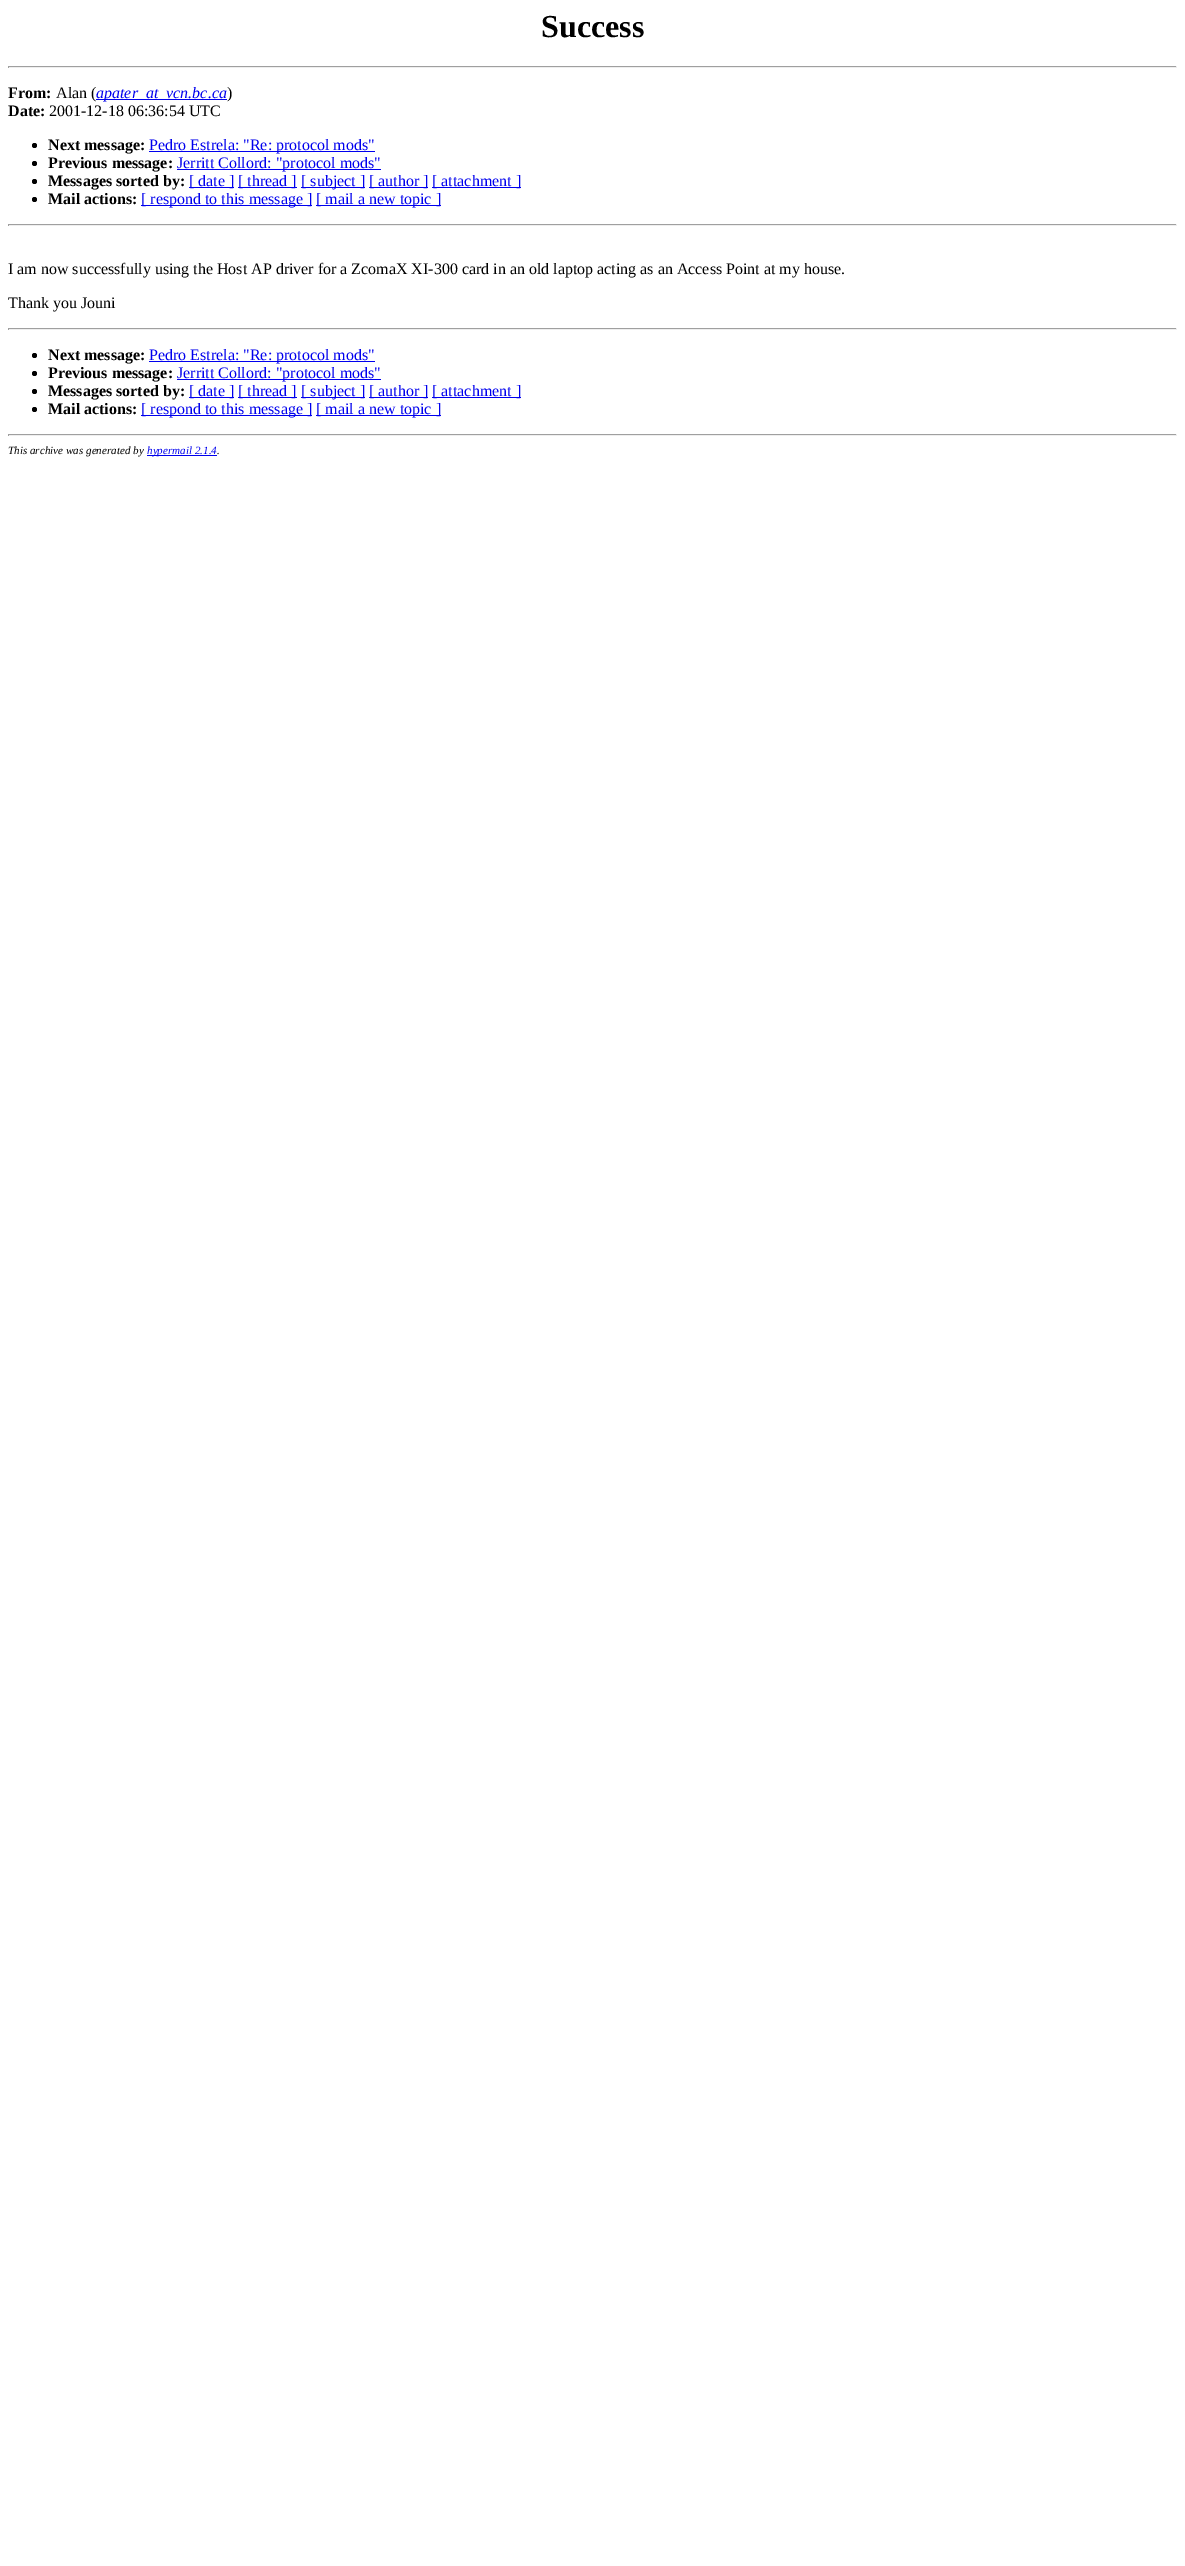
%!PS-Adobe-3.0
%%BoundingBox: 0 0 1185 2566
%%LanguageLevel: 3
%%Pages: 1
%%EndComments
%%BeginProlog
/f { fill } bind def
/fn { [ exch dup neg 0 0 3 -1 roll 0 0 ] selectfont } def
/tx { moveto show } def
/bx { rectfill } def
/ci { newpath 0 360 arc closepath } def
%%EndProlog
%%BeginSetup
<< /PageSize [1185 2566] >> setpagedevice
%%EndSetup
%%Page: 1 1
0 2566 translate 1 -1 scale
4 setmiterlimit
1 setgray
0 0 1185 2566 bx
/LiberationSerif-Bold 32 fn
0 setgray
(Success) 541 37 tx
0.624 setgray
8 66 1169 1 bx
0.933 setgray
1176 66 1 2 bx
8 67 1169 1 bx
0.624 setgray
8 66 1 2 bx
/LiberationSerif-Bold 16 fn
0 setgray
(From:) 8 98 tx
/LiberationSerif-Regular 16 fn
(Alan \() 56 98 tx
0 0 0.933 setrgbcolor
96 99 131 1 bx
/LiberationSerif-Italic 16 fn
(apater_at_vcn.bc.ca) 96 98 tx
/LiberationSerif-Regular 16 fn
0 setgray
(\)) 227 98 tx
/LiberationSerif-Bold 16 fn
(Date:) 8 116 tx
/LiberationSerif-Regular 16 fn
(2001-12-18 06:36:54 UTC) 49 116 tx
34.5 145.5 2.5 ci f
/LiberationSerif-Bold 16 fn
(Next message:) 48 150 tx
0 0 0.933 setrgbcolor
149 151 226 1 bx
/LiberationSerif-Regular 16 fn
(Pedro Estrela: "Re: protocol mods") 149 150 tx
0 setgray
34.5 163.5 2.5 ci f
/LiberationSerif-Bold 16 fn
(Previous message:) 48 168 tx
0 0 0.933 setrgbcolor
177 169 204 1 bx
/LiberationSerif-Regular 16 fn
(Jerritt Collord: "protocol mods") 177 168 tx
0 setgray
34.5 181.5 2.5 ci f
/LiberationSerif-Bold 16 fn
(Messages sorted by:) 48 186 tx
0 0 0.933 setrgbcolor
189 187 45 1 bx
/LiberationSerif-Regular 16 fn
([ date ]) 189 186 tx
238 187 59 1 bx
([ thread ]) 238 186 tx
301 187 64 1 bx
([ subject ]) 301 186 tx
369 187 59 1 bx
([ author ]) 369 186 tx
432 187 89 1 bx
([ attachment ]) 432 186 tx
0 setgray
34.5 199.5 2.5 ci f
/LiberationSerif-Bold 16 fn
(Mail actions:) 48 204 tx
0 0 0.933 setrgbcolor
141 205 171 1 bx
/LiberationSerif-Regular 16 fn
([ respond to this message ]) 141 204 tx
316 205 125 1 bx
([ mail a new topic ]) 316 204 tx
0.624 setgray
8 224 1169 1 bx
0.933 setgray
1176 224 1 2 bx
8 225 1169 1 bx
0.624 setgray
8 224 1 2 bx
0 setgray
(I am now successfully using the Host AP driver for a ZcomaX XI-300 card in an old laptop acting as an Access Point at my house.) 8 274 tx
(Thank you Jouni) 8 308 tx
0.624 setgray
8 328 1169 1 bx
0.933 setgray
1176 328 1 2 bx
8 329 1169 1 bx
0.624 setgray
8 328 1 2 bx
0 setgray
34.5 355.5 2.5 ci f
/LiberationSerif-Bold 16 fn
(Next message:) 48 360 tx
0 0 0.933 setrgbcolor
149 361 226 1 bx
/LiberationSerif-Regular 16 fn
(Pedro Estrela: "Re: protocol mods") 149 360 tx
0 setgray
34.5 373.5 2.5 ci f
/LiberationSerif-Bold 16 fn
(Previous message:) 48 378 tx
0 0 0.933 setrgbcolor
177 379 204 1 bx
/LiberationSerif-Regular 16 fn
(Jerritt Collord: "protocol mods") 177 378 tx
0 setgray
34.5 391.5 2.5 ci f
/LiberationSerif-Bold 16 fn
(Messages sorted by:) 48 396 tx
0 0 0.933 setrgbcolor
189 397 45 1 bx
/LiberationSerif-Regular 16 fn
([ date ]) 189 396 tx
238 397 59 1 bx
([ thread ]) 238 396 tx
301 397 64 1 bx
([ subject ]) 301 396 tx
369 397 59 1 bx
([ author ]) 369 396 tx
432 397 89 1 bx
([ attachment ]) 432 396 tx
0 setgray
34.5 409.5 2.5 ci f
/LiberationSerif-Bold 16 fn
(Mail actions:) 48 414 tx
0 0 0.933 setrgbcolor
141 415 171 1 bx
/LiberationSerif-Regular 16 fn
([ respond to this message ]) 141 414 tx
316 415 125 1 bx
([ mail a new topic ]) 316 414 tx
0.624 setgray
8 434 1169 1 bx
0.933 setgray
1176 434 1 2 bx
8 435 1169 1 bx
0.624 setgray
8 434 1 2 bx
/LiberationSerif-Italic 11.1 fn
0 setgray
(This archive was generated by) 8 454 tx
0 0 0.933 setrgbcolor
147 455 70 1 bx
(hypermail 2.1.4) 147 454 tx
0 setgray
(.) 217 454 tx
showpage
%%EOF
